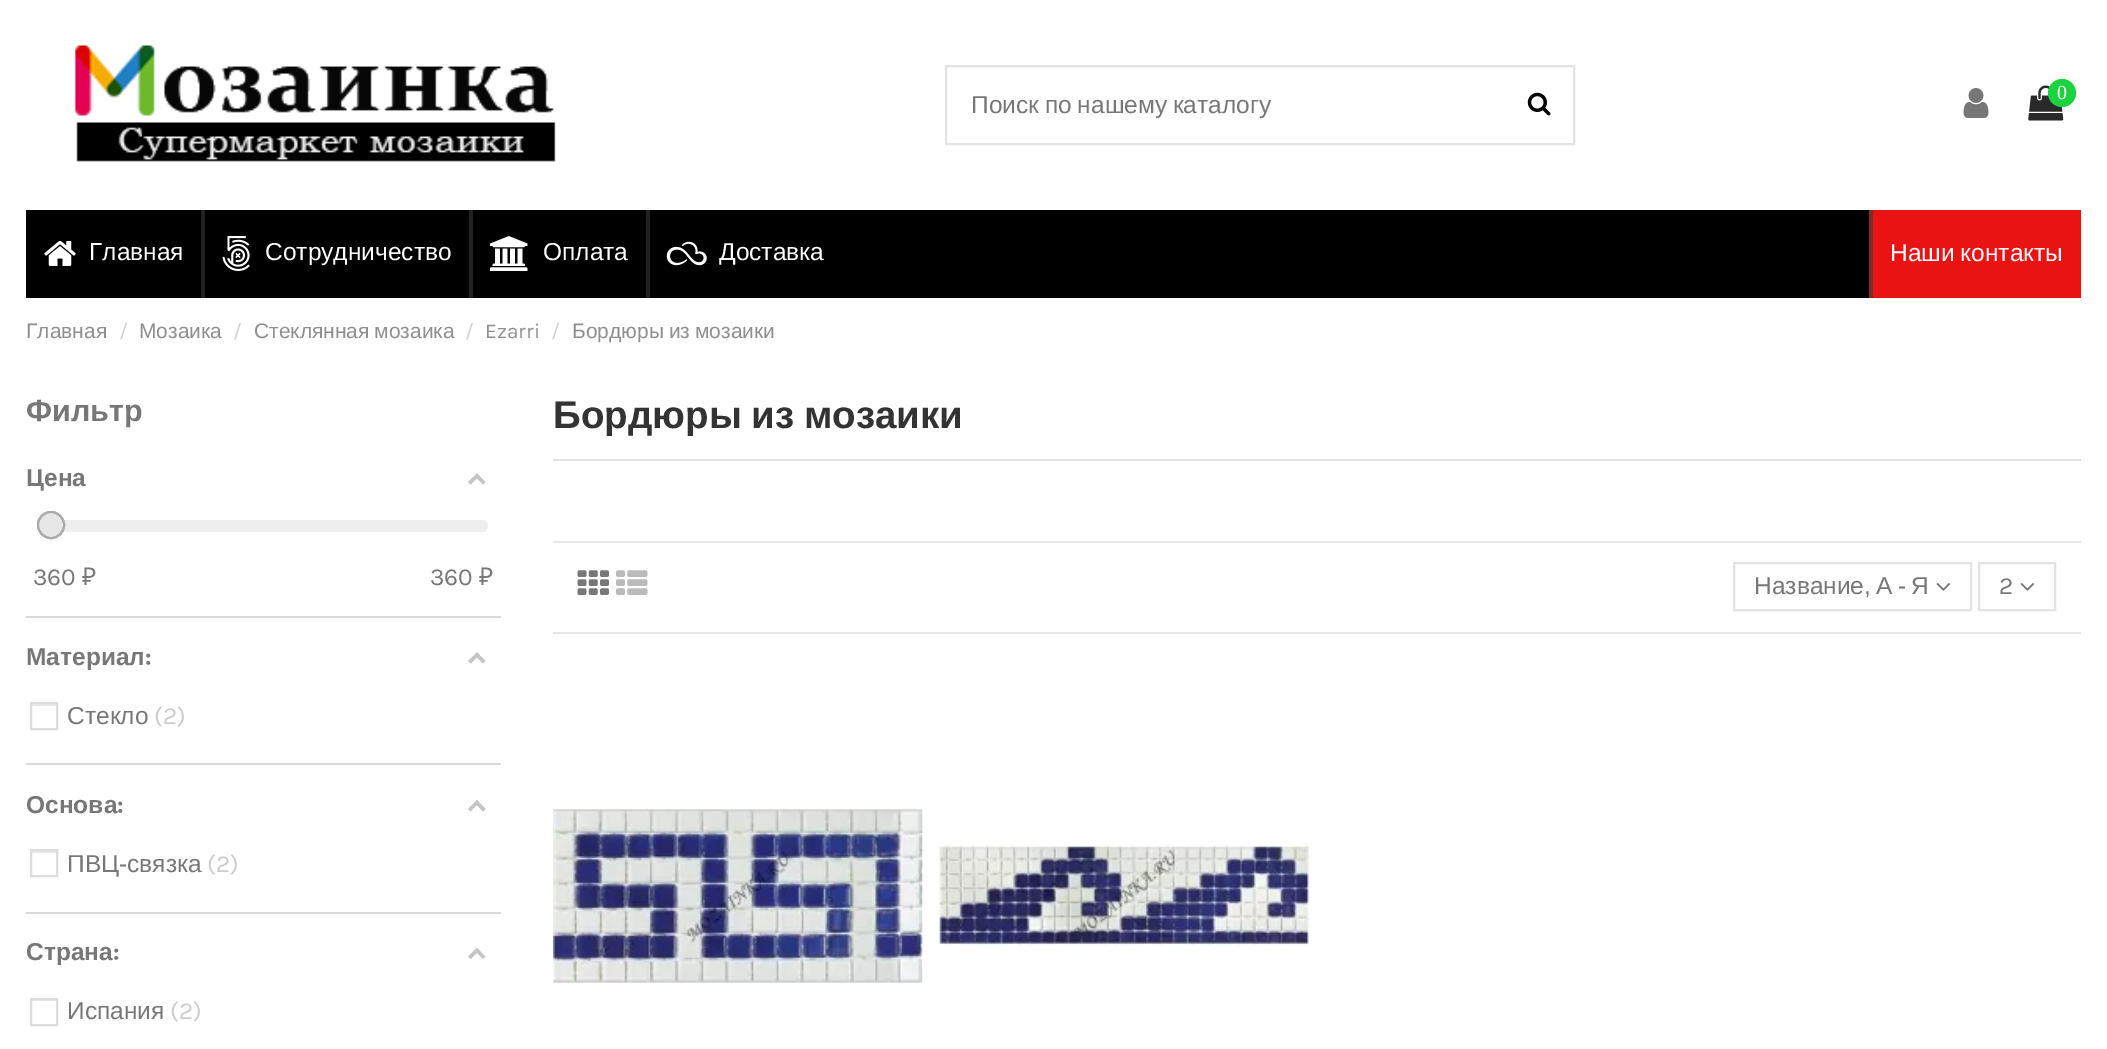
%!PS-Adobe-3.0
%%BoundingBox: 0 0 2107 1049
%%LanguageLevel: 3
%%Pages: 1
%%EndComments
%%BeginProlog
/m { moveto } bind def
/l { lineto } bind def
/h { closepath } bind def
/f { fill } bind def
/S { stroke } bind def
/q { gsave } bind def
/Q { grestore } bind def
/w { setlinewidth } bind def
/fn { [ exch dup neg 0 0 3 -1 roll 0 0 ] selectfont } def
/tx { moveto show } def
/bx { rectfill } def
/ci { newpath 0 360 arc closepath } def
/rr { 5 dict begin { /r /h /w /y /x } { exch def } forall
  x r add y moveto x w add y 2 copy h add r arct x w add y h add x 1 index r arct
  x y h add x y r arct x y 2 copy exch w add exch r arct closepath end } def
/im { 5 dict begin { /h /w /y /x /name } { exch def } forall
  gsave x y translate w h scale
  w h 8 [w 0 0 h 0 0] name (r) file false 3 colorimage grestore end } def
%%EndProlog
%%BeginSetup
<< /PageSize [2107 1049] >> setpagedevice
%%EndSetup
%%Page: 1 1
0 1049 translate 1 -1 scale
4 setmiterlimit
1 setgray
0 0 2107 1049 bx
(image0.raw) 74 45 482 117 im
(image1.raw) 1963 88 26 30 im
(image2.raw) 2028 85 36 36 im
0.106 0.827 0.247 setrgbcolor
2062 93 14 ci f
/LiberationSerif-Regular 20 fn
1 setgray
(0) 2057 99 tx
0.89 setgray
2 w
946 66 628 78 rectstroke
/LiberationSans-Regular 24.5 fn
0.467 setgray
971 113 m -1 0 32 (Поиск по нашему каталогу) widthshow
(image3.raw) 1527 92 24 24 im
0 setgray
26 210 1843 88 bx
(image4.raw) 44 241 32 25 im
1 setgray
(Главная) 89 260 tx
0.129 setgray
201 210 4 88 bx
(image5.raw) 222 236 28 35 im
1 setgray
(Сотрудничество) 265 260 tx
0.129 setgray
469 210 4 88 bx
(image6.raw) 490 236 38 35 im
1 setgray
(Оплата) 543 260 tx
0.129 setgray
646 210 4 88 bx
(image7.raw) 666 241 41 25 im
1 setgray
(Доставка) 719 260 tx
0.918 0.075 0.075 setrgbcolor
1873 210 208 88 bx
0.525 0.161 0.161 setrgbcolor
1869 210 4 88 bx
1 setgray
1890 261 m -1 0 32 (Наши контакты) widthshow
/LiberationSans-Regular 21 fn
0.561 setgray
(Главная) 26 338 tx
/Karla-Regular 21 fn
0.824 setgray
(/) 119 338 tx
/LiberationSans-Regular 21 fn
0.561 setgray
(Мозаика) 139 338 tx
/Karla-Regular 21 fn
0.824 setgray
(/) 233 338 tx
/LiberationSans-Regular 21 fn
0.561 setgray
254 338 m -1 0 32 (Стеклянная мозаика) widthshow
/Karla-Regular 21 fn
0.824 setgray
(/) 465 338 tx
0.561 setgray
(Ezarri) 485 338 tx
0.824 setgray
(/) 551 338 tx
/LiberationSans-Regular 21 fn
0.561 setgray
572 338 m -1 0 32 (Бордюры из мозаики) widthshow
/LiberationSans-Bold 30.5 fn
0.467 setgray
(Фильтр) 26 421 tx
0.855 setgray
26 616 475 2 bx
/LiberationSans-Bold 24.5 fn
0.467 setgray
(Цена) 26 486 tx
0.773 setgray
477 473.5 m 485.5 482 l 483 484.5 l 474.5 476 l h f
477 473.5 m 479.5 476 l 470.5 484.5 l 468 482 l h f
0.933 setgray
39 520 449 12 6 rr f
0.667 setgray
51 525 13 ci S
0.906 setgray
51 525 13 ci q f Q
0.667 setgray
S
/Karla-Regular 24.5 fn
0.467 setgray
(360) 33 585 tx
/NotoSans-Regular 24.5 fn
(₽) 82 585 tx
/Karla-Regular 24.5 fn
(360) 430 585 tx
/NotoSans-Regular 24.5 fn
(₽) 479 585 tx
0.855 setgray
26 763 475 2 bx
/LiberationSans-Bold 24.5 fn
0.467 setgray
(Материал) 26 665 tx
/Karla-Bold 24.5 fn
(:) 145 665 tx
0.773 setgray
477 652.5 m 485.5 661 l 483 663.5 l 474.5 655 l h f
477 652.5 m 479.5 655 l 470.5 663.5 l 468 661 l h f
0.91 setgray
32 704 24 2 bx
0.867 setgray
31 703 26 26 rectstroke
/LiberationSans-Regular 24.5 fn
0.467 setgray
(Стекло) 67 724 tx
/Karla-Regular 24.5 fn
0.8 setgray
(\(2\)) 154 724 tx
0.855 setgray
26 912 475 2 bx
/LiberationSans-Bold 24.5 fn
0.467 setgray
(Основа) 26 813 tx
/Karla-Bold 24.5 fn
(:) 117 813 tx
0.773 setgray
477 800 m 485.5 809 l 483 811.5 l 474.5 802.5 l h f
477 800 m 479.5 802.5 l 470.5 811.5 l 468 809 l h f
0.91 setgray
32 851 24 2 bx
0.867 setgray
31 850 26 26 rectstroke
/LiberationSans-Regular 24.5 fn
0.467 setgray
(ПВЦ-связка) 67 872 tx
/Karla-Regular 24.5 fn
0.8 setgray
(\(2\)) 207 872 tx
/LiberationSans-Bold 24.5 fn
0.467 setgray
(Страна) 26 960 tx
/Karla-Bold 24.5 fn
(:) 113 960 tx
0.773 setgray
477 948 m 485.5 956.5 l 483 959 l 474.5 950.5 l h f
477 948 m 479.5 950.5 l 470.5 959 l 468 956.5 l h f
0.91 setgray
32 1000 24 1 bx
0.867 setgray
31 999 26 26 rectstroke
/LiberationSans-Regular 24.5 fn
0.467 setgray
(Испания) 67 1019 tx
/Karla-Regular 24.5 fn
0.8 setgray
(\(2\)) 170 1019 tx
0.89 setgray
553 459 1528 2 bx
/LiberationSans-Bold 38.5 fn
0.2 setgray
553 428 m -1 0 32 (Бордюры из мозаики) widthshow
0.91 setgray
553 541 1528 2 bx
553 632 1528 2 bx
(image8.raw) 577 570 32 25 im
(image9.raw) 616 570 32 25 im
0.89 setgray
1734 563 237 47 rectstroke
/LiberationSans-Regular 24.5 fn
0.467 setgray
1754 594 m -1.5 0 32 (Название, А - Я) widthshow
(image10.raw) 1936 583 15 8 im
0.89 setgray
1979 563 76 47 rectstroke
/Karla-Regular 24.5 fn
0.467 setgray
(2) 1999 594 tx
(image10.raw) 2020 583 15 8 im
(image11.raw) 553 808 370 175 im
(image12.raw) 939 845 370 101 im
showpage
%%EOF
